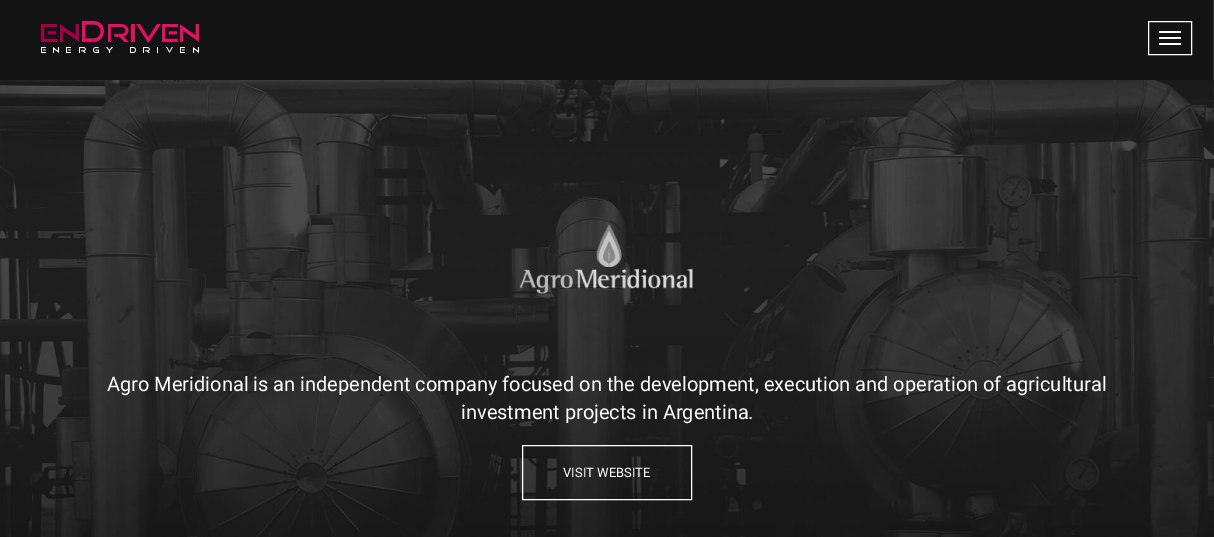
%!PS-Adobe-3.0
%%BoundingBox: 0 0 1214 537
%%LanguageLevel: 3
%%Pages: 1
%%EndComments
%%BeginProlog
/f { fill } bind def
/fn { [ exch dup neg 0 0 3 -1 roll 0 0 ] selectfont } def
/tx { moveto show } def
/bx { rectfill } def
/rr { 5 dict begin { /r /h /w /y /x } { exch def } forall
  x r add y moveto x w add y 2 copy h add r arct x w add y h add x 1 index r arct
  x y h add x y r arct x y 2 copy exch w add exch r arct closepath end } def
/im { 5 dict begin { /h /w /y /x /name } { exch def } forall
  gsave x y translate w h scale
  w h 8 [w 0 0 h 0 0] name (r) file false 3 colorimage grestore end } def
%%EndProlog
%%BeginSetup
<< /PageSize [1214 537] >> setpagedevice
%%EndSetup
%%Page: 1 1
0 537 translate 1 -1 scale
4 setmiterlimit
1 setgray
0 0 1214 537 bx
0.075 setgray
0 0 1213 80 bx
0.188 setgray
1213 0 1 80 bx
(image0.raw) 41 21 158 33 im
1 setgray
1148.5 21.5 43 33 rectstroke
1159 31 22 2 1 rr f
1159 37 22 2 1 rr f
1159 43 22 2 1 rr f
(image1.raw) 0 80 1214 457 im
(image2.raw) 519 224 174 70 im
/Roboto-Regular 20 fn
(Agro Meridional is an independent company focused on the development, execution and operation of agricultural) 107 391 tx
(investment projects in Argentina.) 461 419 tx
522.5 445.5 169 54 rectstroke
/Roboto-Regular 13 fn
(VISIT WEBSITE) 563 477 tx
showpage
%%EOF
